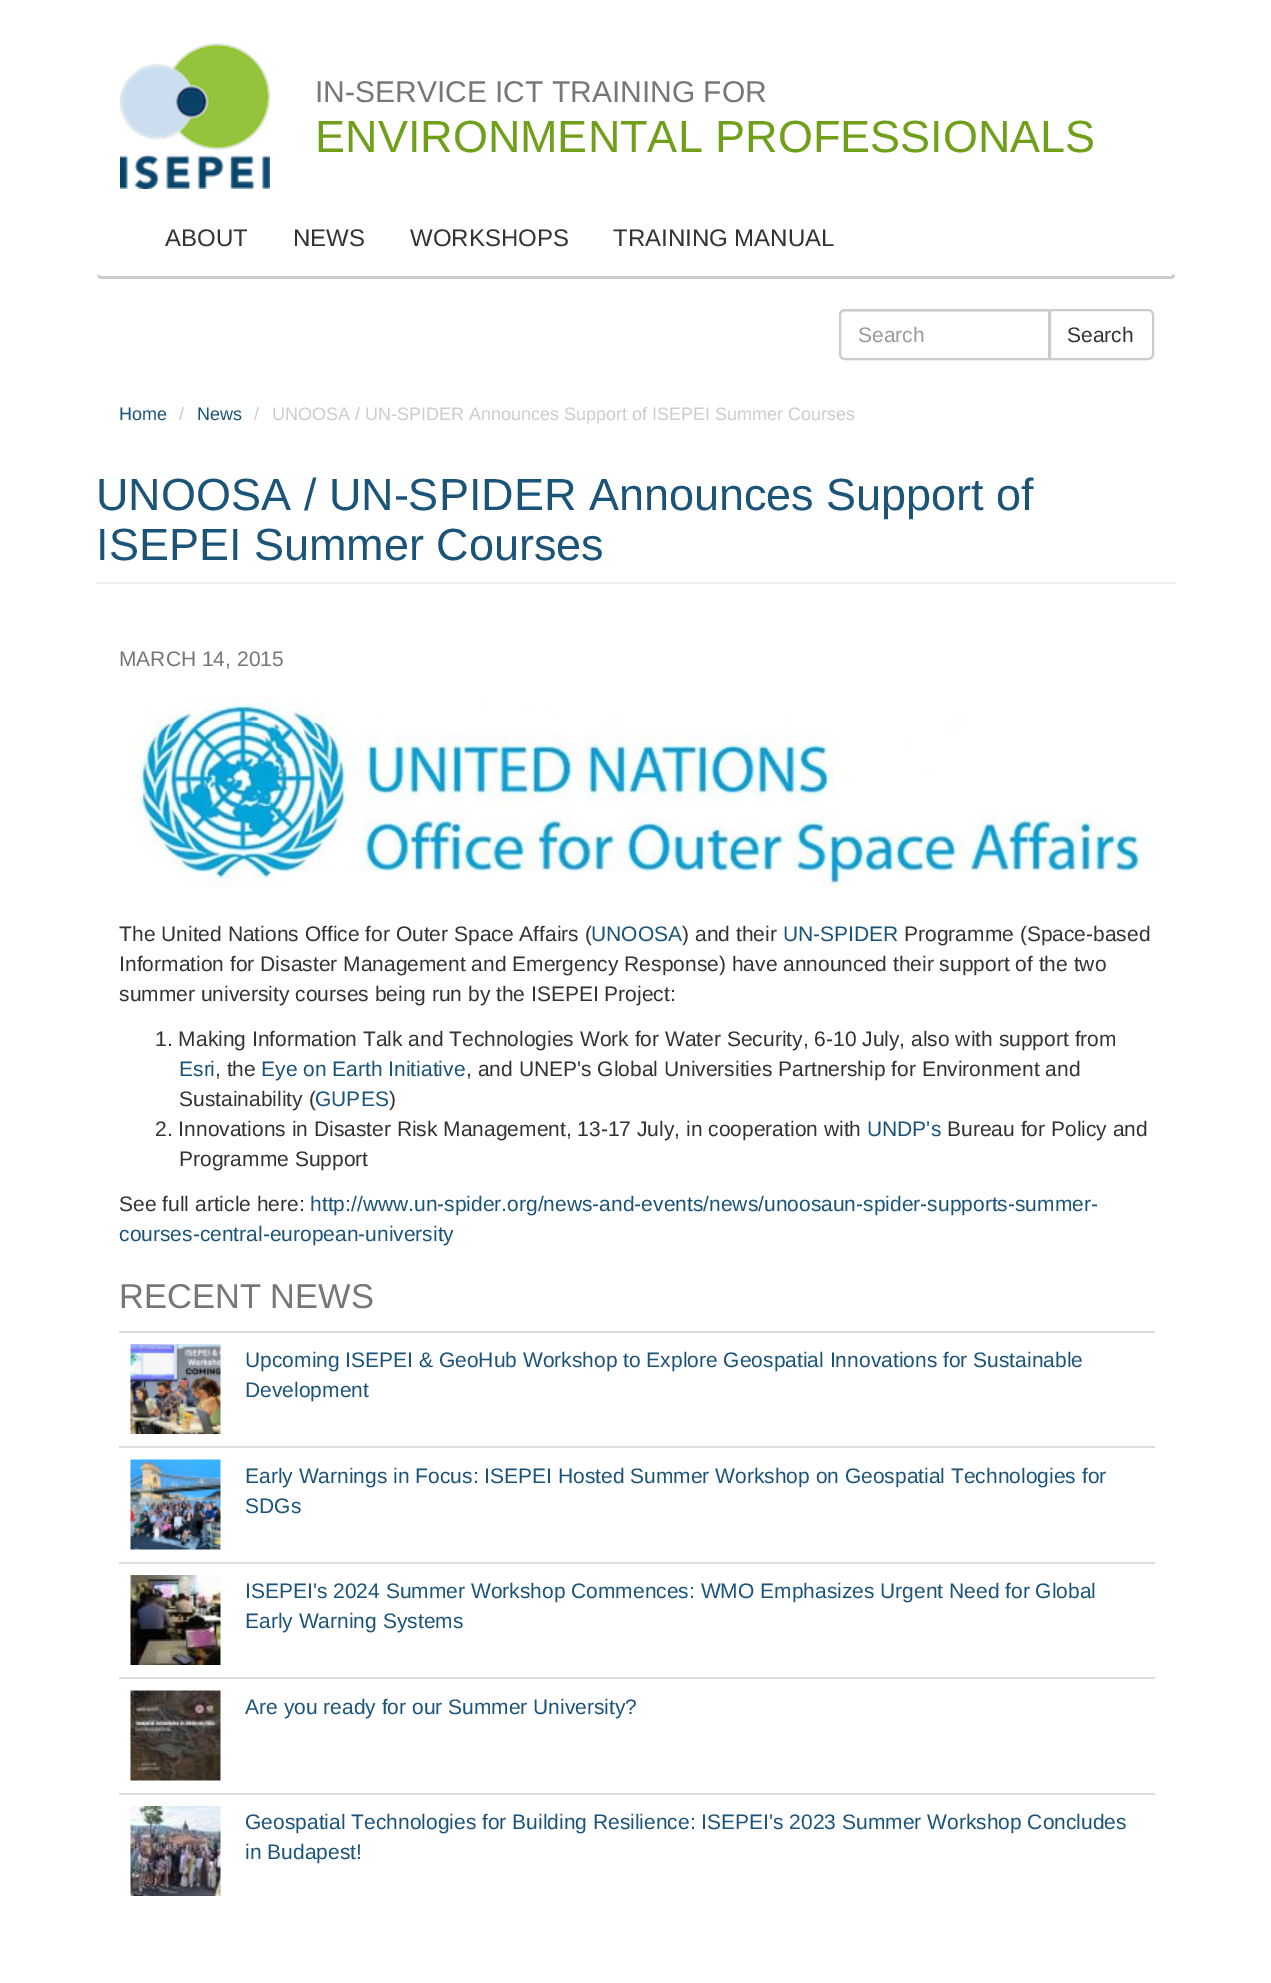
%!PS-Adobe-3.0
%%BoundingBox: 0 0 1271 1983
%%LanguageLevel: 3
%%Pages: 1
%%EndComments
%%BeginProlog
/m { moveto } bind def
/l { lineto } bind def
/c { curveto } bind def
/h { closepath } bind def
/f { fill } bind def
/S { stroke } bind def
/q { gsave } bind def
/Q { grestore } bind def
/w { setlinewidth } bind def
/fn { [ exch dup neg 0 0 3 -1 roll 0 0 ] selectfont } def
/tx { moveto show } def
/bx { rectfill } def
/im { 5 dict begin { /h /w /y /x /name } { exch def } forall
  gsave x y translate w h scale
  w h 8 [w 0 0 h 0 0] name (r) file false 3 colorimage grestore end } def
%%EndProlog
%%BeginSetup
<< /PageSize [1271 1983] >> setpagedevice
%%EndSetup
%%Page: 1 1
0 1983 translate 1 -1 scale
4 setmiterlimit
1 setgray
0 0 1271 1983 bx
0.8 setgray
102 279 m 1170 279 l 1172 279 1174 278 1175 276 c 1174 274 l 1171 276 l 102 276 l 101 276 99 276 98 274 c 97 276 l 98 278 100 279 102 279 c h f
1 setgray
96 36 m 96 273 l 97 276 l 98 274 l 98 36 l 99 33 l 98 32 l 97 33 96 34 96 36 c h f
(image0.raw) 120 43 150 146 im
/LiberationSans-Regular 30 fn
0.467 setgray
(IN-SERVICE ICT TRAINING FOR) 315 102 tx
/LiberationSans-Regular 45 fn
0.439 0.627 0.098 setrgbcolor
(ENVIRONMENTAL PROFESSIONALS) 315 152 tx
/LiberationSans-Regular 24 fn
0.2 setgray
(ABOUT) 165 246 tx
(NEWS) 293 246 tx
(WORKSHOPS) 410 246 tx
(TRAINING MANUAL) 613 246 tx
0.925 setgray
844 312 m 1048 312 l 1048 359 l 1049 359 l 1049 311 l 845 311 l 842 311 840 313 840 316 c 840 314 842 312 844 312 c h f
0.8 setgray
2 w
845 310 m 1049 310 l 1049 359 l 845 359 l 842 359 840 357 840 354 c 840 315 l 840 312 842 310 845 310 c h S
/LiberationSans-Regular 21 fn
0.6 setgray
(Search) 858 342 tx
1 setgray
1050 310 m 1148 310 l 1151 310 1153 312 1153 315 c 1153 354 l 1153 357 1151 359 1148 359 c 1050 359 l h q f Q
0.8 setgray
S
0.2 setgray
(Search) 1067 342 tx
/LiberationSans-Regular 18 fn
0.106 0.329 0.475 setrgbcolor
(Home) 119 420 tx
0.8 setgray
(/) 179 420 tx
0.106 0.329 0.475 setrgbcolor
(News) 197 420 tx
0.8 setgray
(/) 254 420 tx
(UNOOSA / UN-SPIDER Announces Support of ISEPEI Summer Courses) 272 420 tx
0.933 setgray
96 582 1080 2 bx
/LiberationSans-Regular 45 fn
0.106 0.329 0.475 setrgbcolor
(UNOOSA / UN-SPIDER Announces Support of) 96 510 tx
(ISEPEI Summer Courses) 96 560 tx
/LiberationSans-Regular 21 fn
0.467 setgray
(MARCH 14, 2015) 119 666 tx
(image1.raw) 135 697 1019 192 im
0.2 setgray
(The United Nations Office for Outer Space Affairs \() 119 941 tx
0.106 0.329 0.475 setrgbcolor
(UNOOSA) 591 941 tx
0.2 setgray
(\) and their) 682 941 tx
0.106 0.329 0.475 setrgbcolor
(UN-SPIDER) 783 941 tx
0.2 setgray
(Programme \(Space-based) 904 941 tx
(Information for Disaster Management and Emergency Response\) have announced their support of the two) 119 971 tx
(summer university courses being run by the ISEPEI Project:) 119 1001 tx
(1. Making Information Talk and Technologies Work for Water Security, 6-10 July, also with support from) 155 1046 tx
0.106 0.329 0.475 setrgbcolor
(Esri) 179 1076 tx
0.2 setgray
(, the) 215 1076 tx
0.106 0.329 0.475 setrgbcolor
(Eye on Earth Initiative) 261 1076 tx
0.2 setgray
(, and UNEP's Global Universities Partnership for Environment and) 466 1076 tx
(Sustainability \() 179 1106 tx
0.106 0.329 0.475 setrgbcolor
(GUPES) 315 1106 tx
0.2 setgray
(\)) 389 1106 tx
(2. Innovations in Disaster Risk Management, 13-17 July, in cooperation with) 155 1136 tx
0.106 0.329 0.475 setrgbcolor
(UNDP's) 867 1136 tx
0.2 setgray
(Bureau for Policy and) 947 1136 tx
(Programme Support) 179 1166 tx
(See full article here:) 119 1211 tx
0.106 0.329 0.475 setrgbcolor
(http://www.un-spider.org/news-and-events/news/unoosaun-spider-supports-summer-) 310 1211 tx
(courses-central-european-university) 119 1241 tx
/LiberationSans-Regular 34.5 fn
0.467 setgray
(RECENT NEWS) 119 1308 tx
(image2.raw) 130 1344 91 90 im
0.867 setgray
119 1331 1036 2 bx
/LiberationSans-Regular 21 fn
0.106 0.329 0.475 setrgbcolor
(Upcoming ISEPEI & GeoHub Workshop to Explore Geospatial Innovations for Sustainable) 245 1367 tx
(Development) 245 1397 tx
(image3.raw) 130 1459 91 91 im
0.867 setgray
119 1446 1036 2 bx
0.106 0.329 0.475 setrgbcolor
(Early Warnings in Focus: ISEPEI Hosted Summer Workshop on Geospatial Technologies for) 245 1483 tx
(SDGs) 245 1513 tx
(image4.raw) 130 1575 91 90 im
0.867 setgray
119 1562 1036 2 bx
0.106 0.329 0.475 setrgbcolor
(ISEPEI's 2024 Summer Workshop Commences: WMO Emphasizes Urgent Need for Global) 245 1598 tx
(Early Warning Systems) 245 1628 tx
(image5.raw) 130 1690 91 91 im
0.867 setgray
119 1677 1036 2 bx
0.106 0.329 0.475 setrgbcolor
(Are you ready for our Summer University?) 245 1714 tx
(image6.raw) 130 1806 91 90 im
0.867 setgray
119 1793 1036 2 bx
0.106 0.329 0.475 setrgbcolor
(Geospatial Technologies for Building Resilience: ISEPEI's 2023 Summer Workshop Concludes) 245 1829 tx
(in Budapest!) 245 1859 tx
showpage
%%EOF
